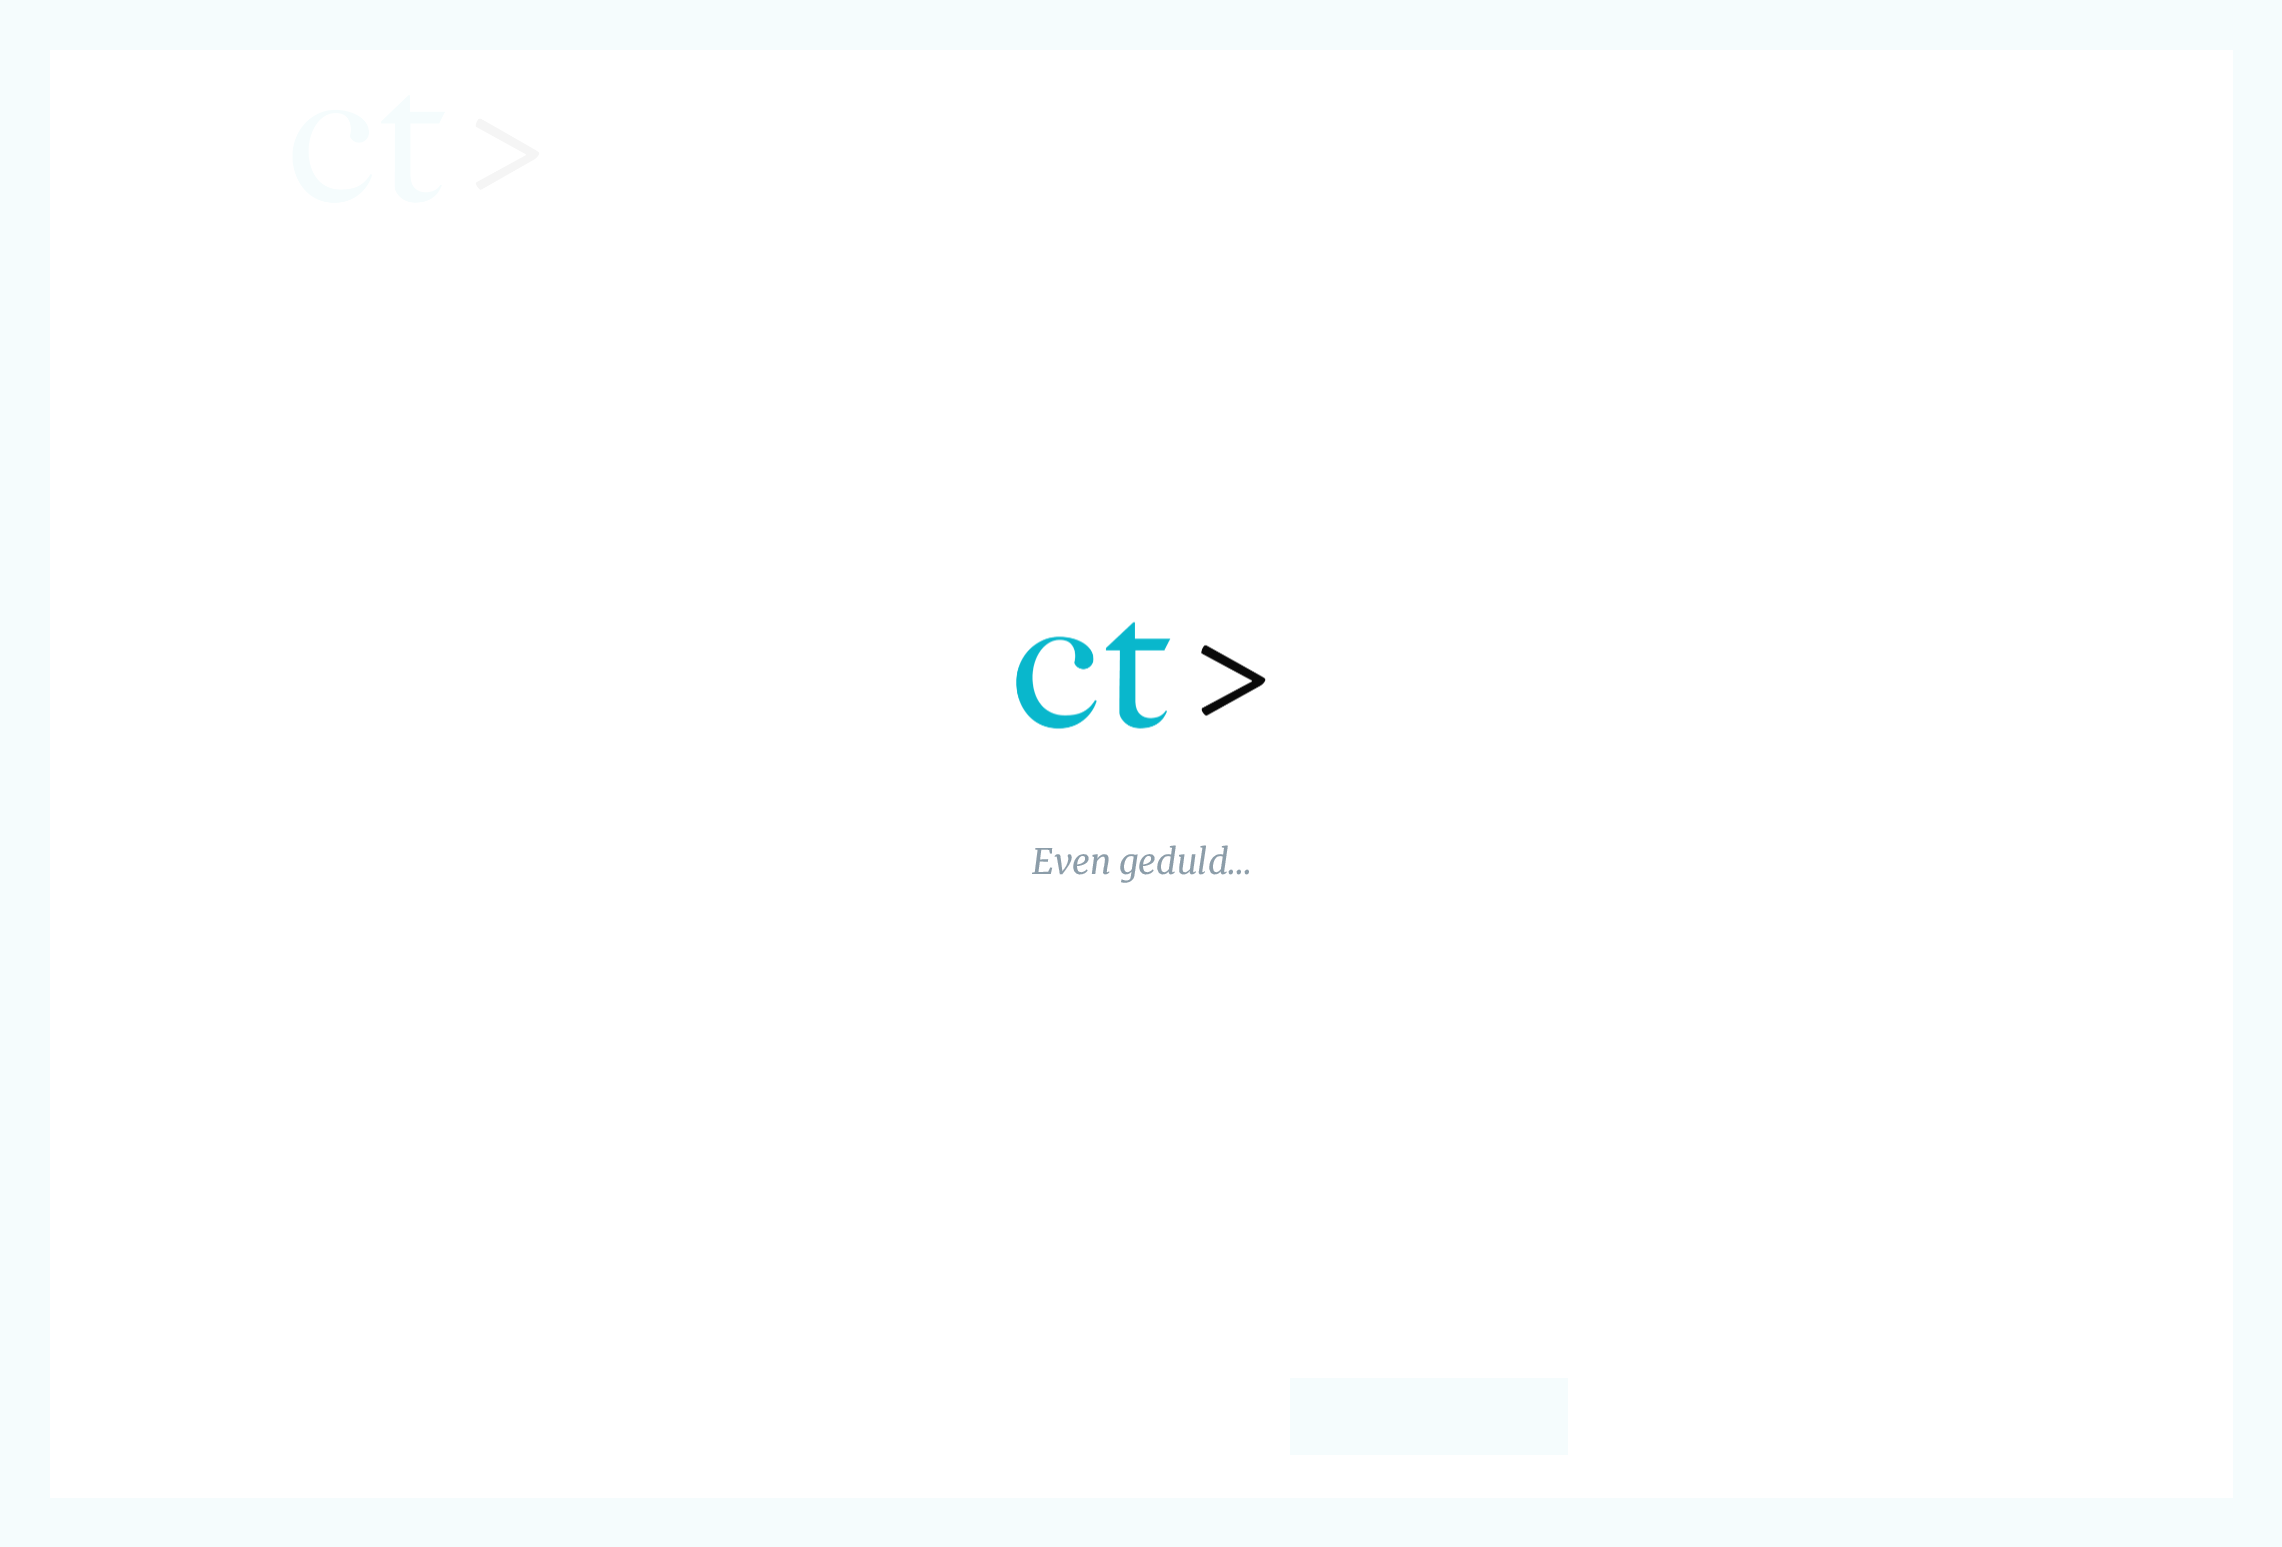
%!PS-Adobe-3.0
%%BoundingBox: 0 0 2282 1547
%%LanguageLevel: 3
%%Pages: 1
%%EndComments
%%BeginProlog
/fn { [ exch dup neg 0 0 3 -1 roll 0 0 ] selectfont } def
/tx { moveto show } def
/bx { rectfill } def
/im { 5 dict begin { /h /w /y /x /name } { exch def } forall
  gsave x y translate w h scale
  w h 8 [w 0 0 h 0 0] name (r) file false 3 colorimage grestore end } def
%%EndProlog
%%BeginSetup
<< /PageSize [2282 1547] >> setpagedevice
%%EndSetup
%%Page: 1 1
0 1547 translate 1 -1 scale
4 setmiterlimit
1 setgray
0 0 2282 1547 bx
0.961 0.988 0.992 setrgbcolor
0 0 2282 50 bx
0 50 50 1448 bx
(image0.raw) 292 95 248 108 im
2233 50 49 1448 bx
(image1.raw) 1016 621 250 109 im
/Merriweather-Italic 35 fn
0.549 0.616 0.663 setrgbcolor
(Even geduld...) 1032 874 tx
0.961 0.988 0.992 setrgbcolor
1290 1378 278 77 bx
0 1498 2282 49 bx
showpage
%%EOF
